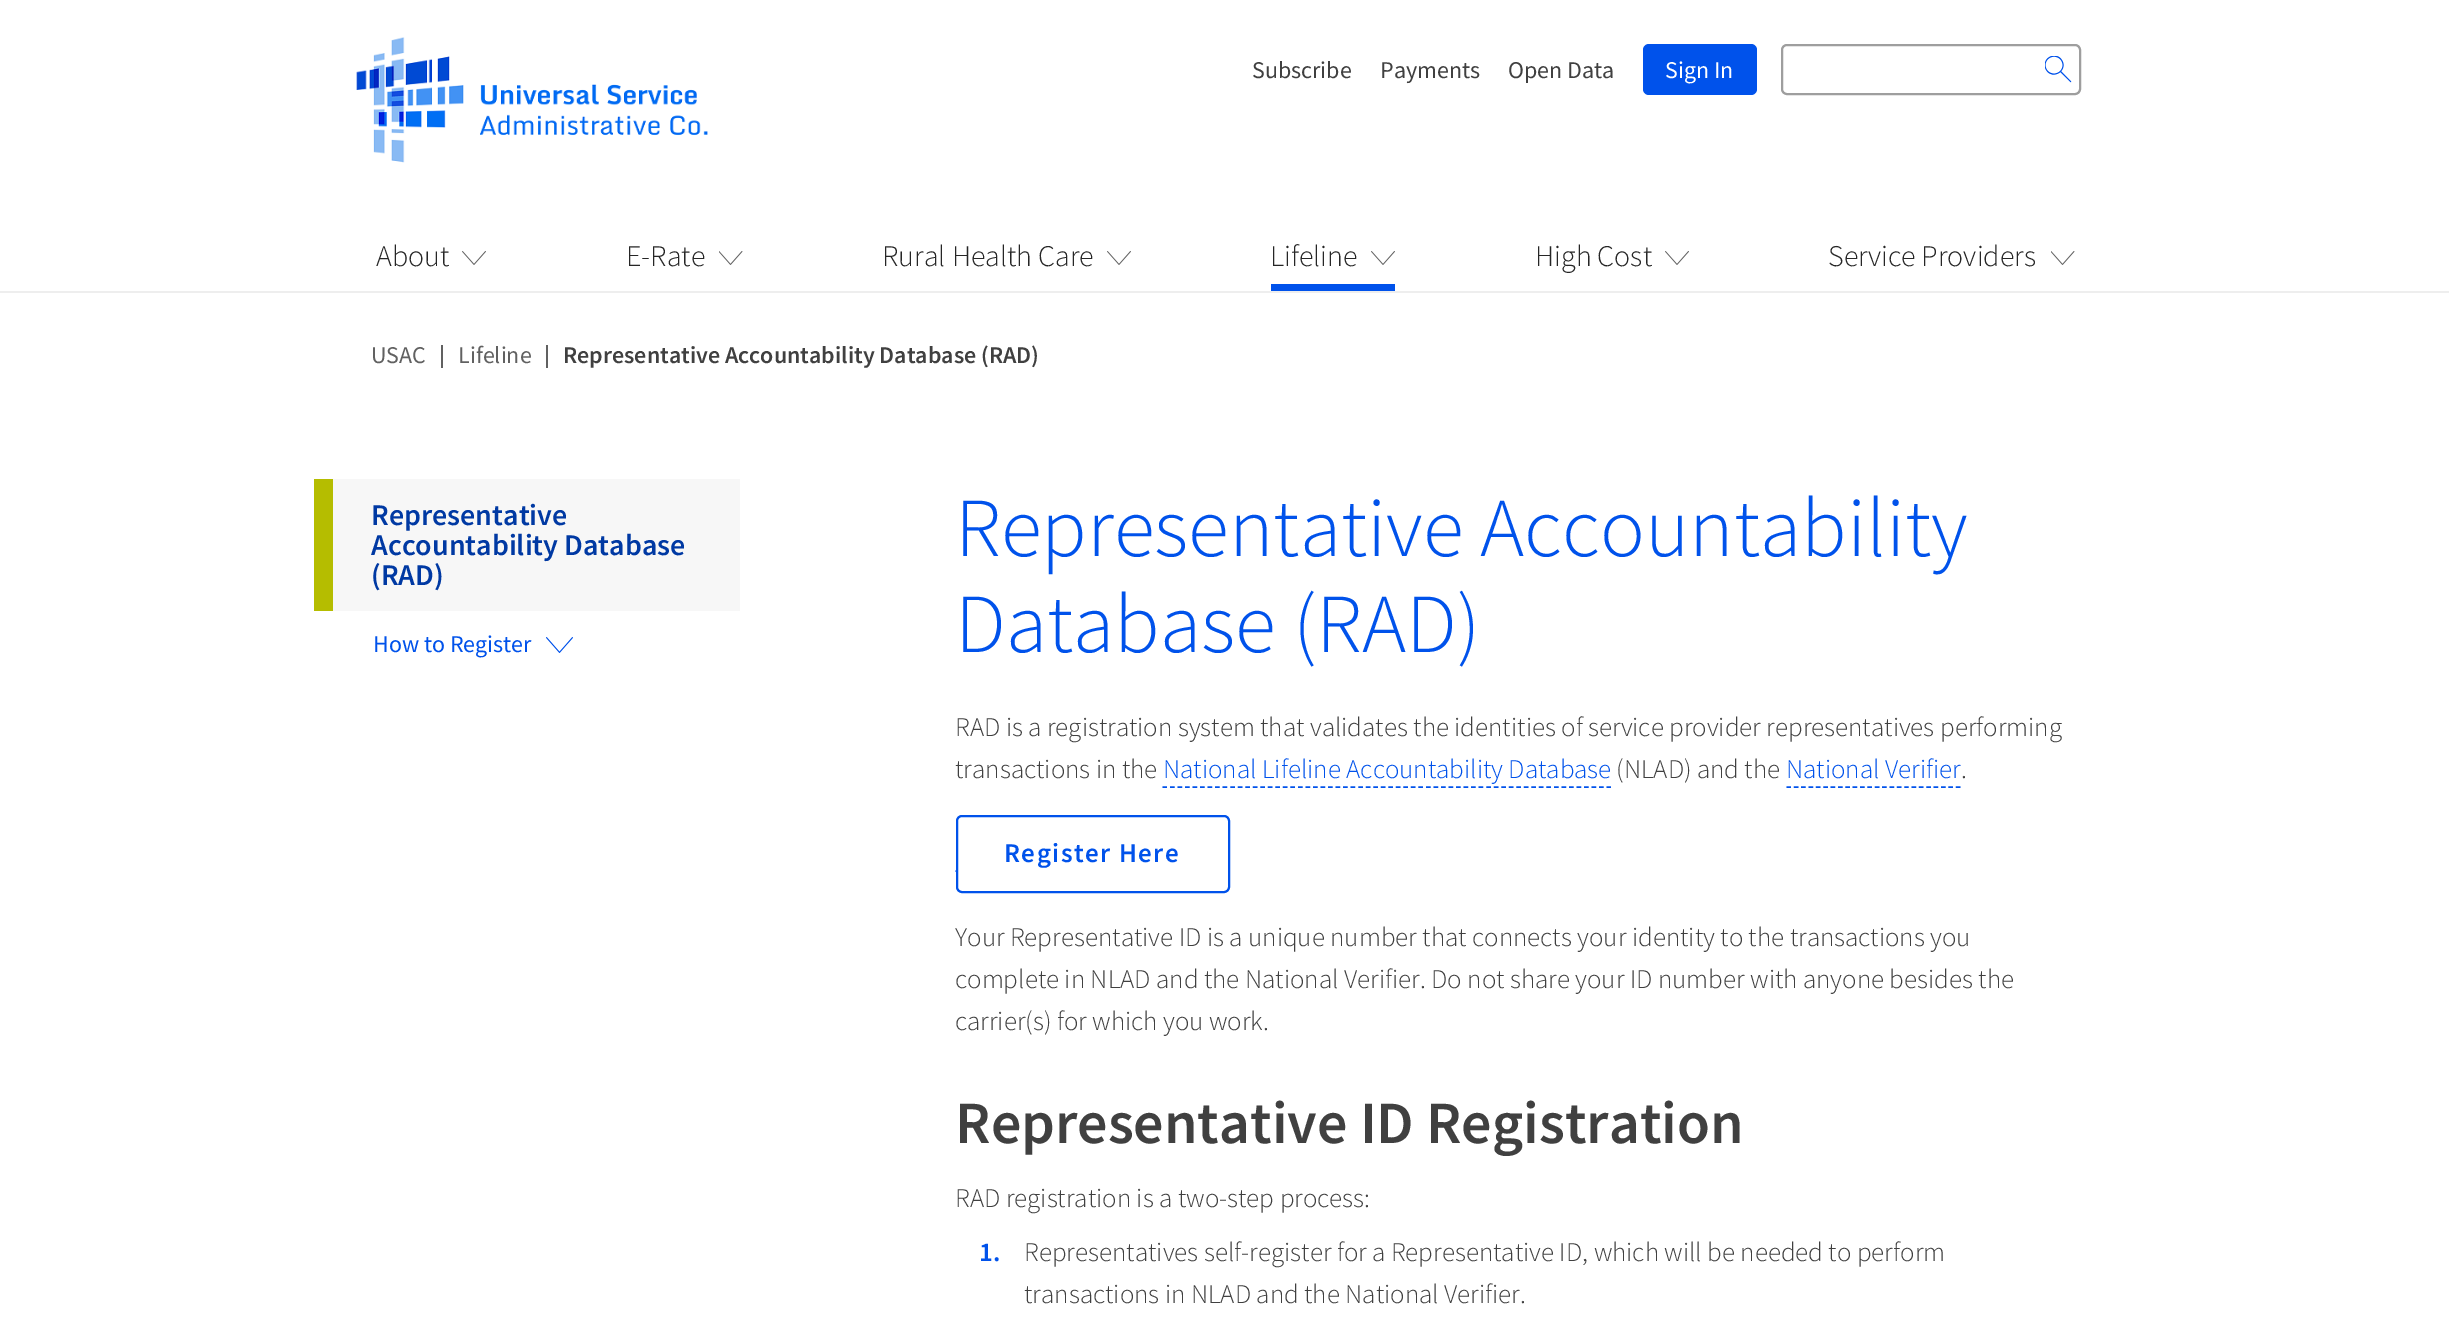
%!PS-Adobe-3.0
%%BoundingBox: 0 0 2449 1324
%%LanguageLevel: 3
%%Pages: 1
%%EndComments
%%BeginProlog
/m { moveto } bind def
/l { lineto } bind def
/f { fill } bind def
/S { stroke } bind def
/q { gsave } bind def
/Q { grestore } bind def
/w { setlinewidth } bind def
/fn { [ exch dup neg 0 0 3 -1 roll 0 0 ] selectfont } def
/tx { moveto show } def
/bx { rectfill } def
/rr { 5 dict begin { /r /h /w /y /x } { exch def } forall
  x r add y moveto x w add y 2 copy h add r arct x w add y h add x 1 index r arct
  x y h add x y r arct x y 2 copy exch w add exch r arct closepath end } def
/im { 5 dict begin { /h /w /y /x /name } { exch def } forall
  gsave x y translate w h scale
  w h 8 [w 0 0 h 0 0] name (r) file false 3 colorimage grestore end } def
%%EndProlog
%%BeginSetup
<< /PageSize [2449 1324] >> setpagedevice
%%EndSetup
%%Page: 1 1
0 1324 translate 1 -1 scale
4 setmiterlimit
1 setgray
0 0 2449 1324 bx
0.933 setgray
0 291 2449 2 bx
(image0.raw) 356 37 352 126 im
/SourceSansPro-Regular 24 fn
0.251 setgray
(Subscribe) 1252 78 tx
(Payments) 1380 78 tx
(Open Data) 1508 78 tx
0 0.322 0.922 setrgbcolor
1643 44 114 51 6 rr f
1 setgray
(Sign In) 1665 78 tx
0.62 setgray
2 w
1782 45 298 49 5 rr S
(image1.raw) 2045 56 27 27 im
(image2.raw) 462 251 24 14 im
/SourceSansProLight-Light 30 fn
0.149 setgray
(About) 376 266 tx
(image3.raw) 719 251 24 14 im
(E-Rate) 626 266 tx
(image2.raw) 1107 251 24 14 im
(Rural Health Care) 882 266 tx
(image2.raw) 1371 251 24 14 im
0 0.322 0.922 setrgbcolor
1271 284 124 7 bx
0.149 setgray
(Lifeline) 1270 266 tx
(image2.raw) 1665 251 24 14 im
(High Cost) 1535 266 tx
(image3.raw) 2051 251 24 14 im
(Service Providers) 1828 266 tx
/SourceSansPro-Regular 24 fn
0.38 setgray
(USAC) 371 363 tx
441 345 2 23 bx
(Lifeline) 458 363 tx
546 345 2 23 bx
/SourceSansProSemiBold-SemiBold 24 fn
0.251 setgray
(Representative Accountability Database \(RAD\)) 563 363 tx
0.969 setgray
333 479 407 132 bx
0.71 0.741 0 setrgbcolor
314 479 19 132 bx
/SourceSansProSemiBold-SemiBold 30 fn
0 0.224 0.639 setrgbcolor
(Representative) 371 525 tx
(Accountability Database) 371 555 tx
(\(RAD\)) 371 585 tx
/SourceSansPro-Regular 24 fn
0 0.322 0.922 setrgbcolor
(How to Register) 373 652 tx
(image4.raw) 546 637 27 16 im
/SourceSansProLight-Light 84 fn
(Representative Accountability) 955 556 tx
(Database \(RAD\)) 955 652 tx
/SourceSansProLight-Light 27 fn
0.251 setgray
(RAD is a registration system that validates the identities of service provider representatives performing) 955 736 tx
(transactions in the) 955 778 tx
0 0.322 0.922 setrgbcolor
(National Lifeline Accountability Database) 1163 778 tx
1.5 w
[4.5 3.03] 0 setdash
1162.5 787 m 1611 787 l S
0.251 setgray
(\(NLAD\) and the) 1616 778 tx
0 0.322 0.922 setrgbcolor
(National Verifier) 1786 778 tx
[4.5 2.86] 0 setdash
1786.5 787 m 1960.5 787 l S
0.251 setgray
(.) 1961 778 tx
0 0.322 0.922 setrgbcolor
[4.5 3] 0 setdash
955.5 871 m 1230 871 l S
1 setgray
957 816 272 76 5 rr q f Q
0 0.322 0.922 setrgbcolor
2 w
[] 0 setdash
S
/SourceSansProSemiBold-SemiBold 27 fn
1004 862 m 1.5 0 (Register Here) ashow
/SourceSansProLight-Light 27 fn
0.251 setgray
(Your Representative ID is a unique number that connects your identity to the transactions you) 955 946 tx
(complete in NLAD and the National Verifier. Do not share your ID number with anyone besides the) 955 988 tx
(carrier\(s\) for which you work.) 955 1030 tx
/SourceSansProSemiBold-SemiBold 60 fn
(Representative ID Registration) 955 1143 tx
/SourceSansProLight-Light 27 fn
(RAD registration is a two-step process:) 955 1207 tx
/SourceSansProSemiBold-SemiBold 27 fn
0 0.322 0.922 setrgbcolor
(1.) 979 1261 tx
/SourceSansProLight-Light 27 fn
0.251 setgray
(Representatives self-register for a Representative ID, which will be needed to perform) 1024 1261 tx
(transactions in NLAD and the National Verifier.) 1024 1303 tx
showpage
%%EOF
